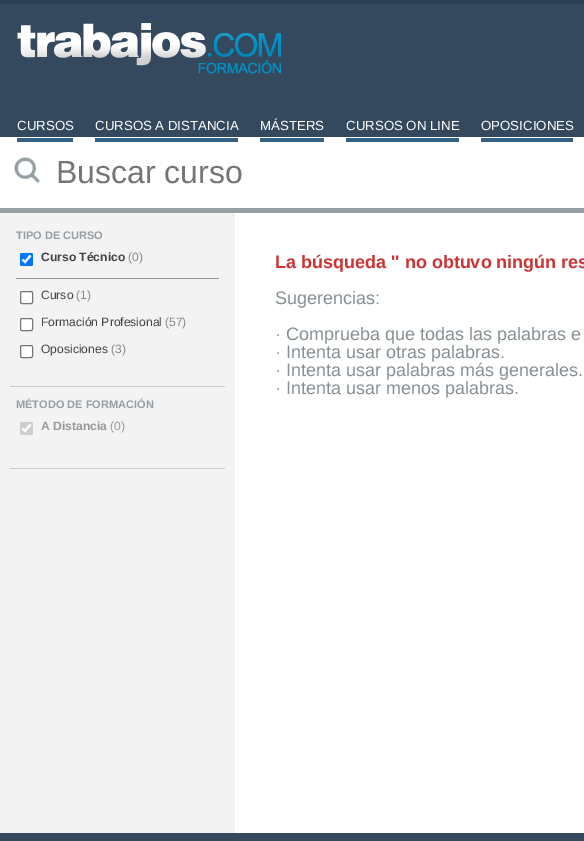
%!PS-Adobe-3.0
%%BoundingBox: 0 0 584 841
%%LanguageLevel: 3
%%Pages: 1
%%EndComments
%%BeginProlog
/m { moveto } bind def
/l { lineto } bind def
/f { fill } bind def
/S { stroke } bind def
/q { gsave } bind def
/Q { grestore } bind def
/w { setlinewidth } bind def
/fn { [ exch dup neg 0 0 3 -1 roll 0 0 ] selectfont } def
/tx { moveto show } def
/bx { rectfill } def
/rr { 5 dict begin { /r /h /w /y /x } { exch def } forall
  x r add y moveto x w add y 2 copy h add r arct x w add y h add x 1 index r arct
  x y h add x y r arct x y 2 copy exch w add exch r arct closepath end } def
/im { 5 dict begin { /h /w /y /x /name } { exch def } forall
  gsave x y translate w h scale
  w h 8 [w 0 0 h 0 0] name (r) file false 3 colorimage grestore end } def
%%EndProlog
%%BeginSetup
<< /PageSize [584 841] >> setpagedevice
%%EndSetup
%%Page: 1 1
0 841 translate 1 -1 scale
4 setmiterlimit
1 setgray
0 0 584 841 bx
0.204 0.286 0.369 setrgbcolor
0 4 584 133 bx
0.173 0.243 0.314 setrgbcolor
0 0 584 4 bx
(image0.raw) 17 23 264 51 im
/LiberationSans-Regular 13.25 fn
1 setgray
(CURSOS) 17 130 tx
0.196 0.38 0.522 setrgbcolor
17 138 56 4 bx
1 setgray
(CURSOS A DISTANCIA) 95 130 tx
0.196 0.38 0.522 setrgbcolor
95 138 143 4 bx
1 setgray
(MÁSTERS) 260 130 tx
0.196 0.38 0.522 setrgbcolor
260 138 64 4 bx
1 setgray
(CURSOS ON LINE) 346 130 tx
0.196 0.38 0.522 setrgbcolor
346 138 113 4 bx
1 setgray
(OPOSICIONES) 481 130 tx
0.196 0.38 0.522 setrgbcolor
481 138 92 4 bx
0.588 0.624 0.639 setrgbcolor
0 208 584 5 bx
(image1.raw) 14 157 26 26 im
/LiberationSans-Regular 32 fn
0.459 setgray
(Buscar curso) 56 183 tx
0.953 0.953 0.957 setrgbcolor
0 213 235 620 bx
0.78 0.804 0.816 setrgbcolor
10 386 215 1 bx
/LiberationSans-Bold 11 fn
0.588 0.624 0.639 setrgbcolor
(TIPO DE CURSO) 16 239 tx
0.6 setgray
16 278 203 1 bx
0 0.459 1 setrgbcolor
20 253 13 13 2 rr f
1 setgray
2.1 w
22.5 259.5 m 25 262 l 30.5 255.5 l S
/LiberationSans-Bold 12.1 fn
0.267 setgray
(Curso Técnico) 41 261 tx
/LiberationSans-Regular 12.1 fn
0.533 setgray
(\(0\)) 128 261 tx
1 setgray
20.5 291.5 12 12 1.5 rr q f Q
0.463 setgray
1 w
S
0.267 setgray
(Curso) 41 299 tx
0.533 setgray
(\(1\)) 76 299 tx
1 setgray
20.5 318.5 12 12 1.5 rr q f Q
0.463 setgray
S
0.267 setgray
(Formación Profesional) 41 326 tx
0.533 setgray
(\(57\)) 165 326 tx
1 setgray
20.5 345.5 12 12 1.5 rr q f Q
0.463 setgray
S
0.267 setgray
(Oposiciones) 41 353 tx
0.533 setgray
(\(3\)) 111 353 tx
0.78 0.804 0.816 setrgbcolor
10 468 215 1 bx
/LiberationSans-Bold 11 fn
0.588 0.624 0.639 setrgbcolor
(MÉTODO DE FORMACIÓN) 16 408 tx
0.808 setgray
20 422 13 13 2 rr f
1 setgray
2.1 w
22.5 428.5 m 25 431 l 30.5 424.5 l S
/LiberationSans-Bold 12.1 fn
0.6 setgray
(A Distancia) 41 430 tx
/LiberationSans-Regular 12.1 fn
(\(0\)) 110 430 tx
/LiberationSans-Bold 18 fn
0.8 0.2 0.2 setrgbcolor
(La búsqueda '' no obtuvo ningún res) 275 268 tx
/LiberationSans-Regular 18 fn
0.525 0.561 0.576 setrgbcolor
(Sugerencias:) 275 304 tx
(· Comprueba que todas las palabras e) 275 340 tx
(· Intenta usar otras palabras.) 275 358 tx
(· Intenta usar palabras más generales.) 275 376 tx
(· Intenta usar menos palabras.) 275 394 tx
0.204 0.286 0.369 setrgbcolor
0 833 584 8 bx
showpage
%%EOF
